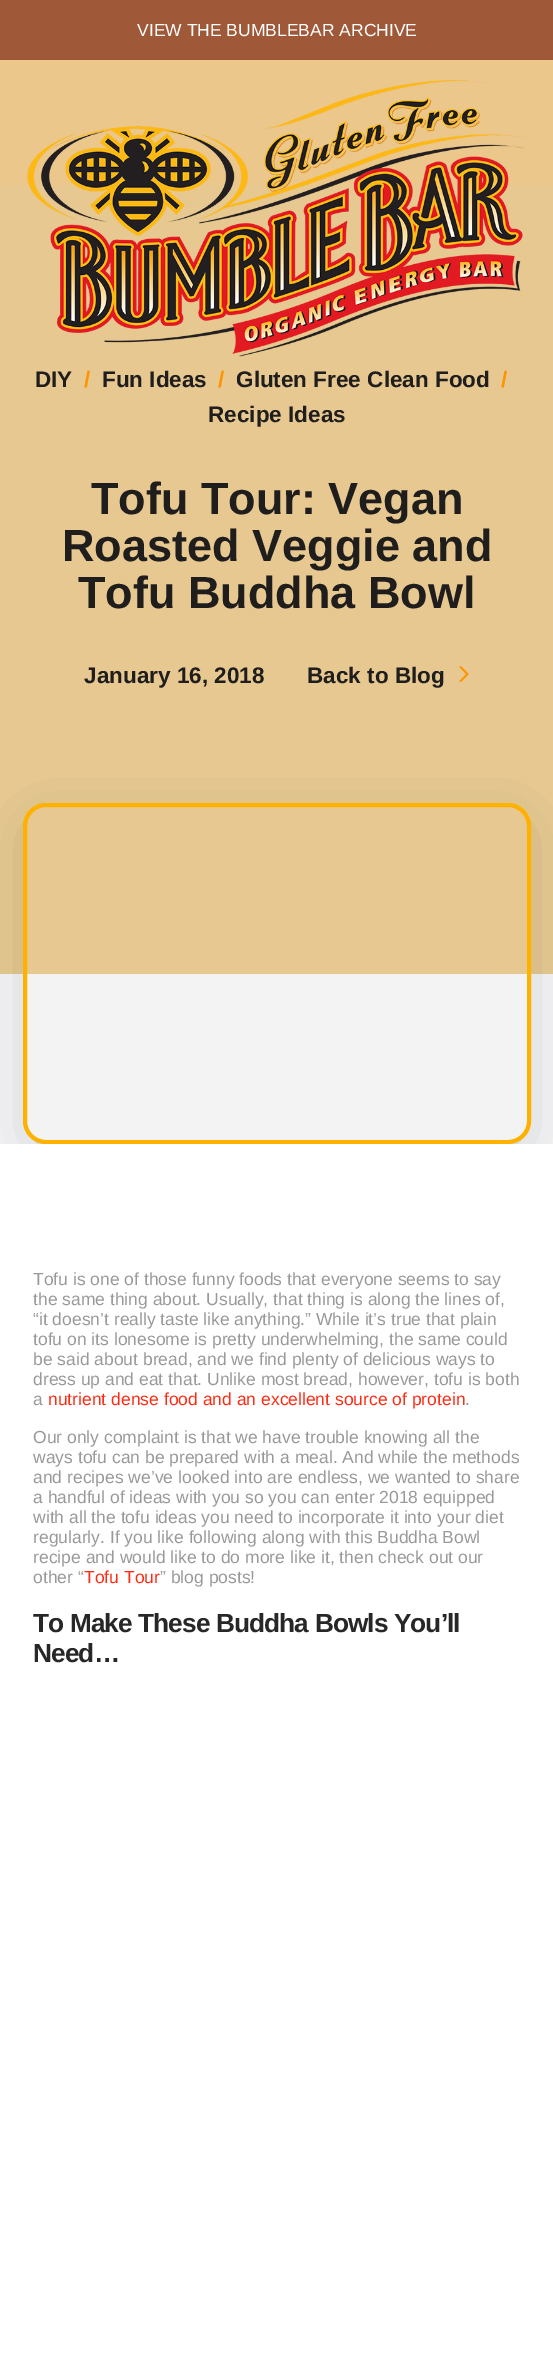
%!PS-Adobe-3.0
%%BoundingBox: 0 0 553 2365
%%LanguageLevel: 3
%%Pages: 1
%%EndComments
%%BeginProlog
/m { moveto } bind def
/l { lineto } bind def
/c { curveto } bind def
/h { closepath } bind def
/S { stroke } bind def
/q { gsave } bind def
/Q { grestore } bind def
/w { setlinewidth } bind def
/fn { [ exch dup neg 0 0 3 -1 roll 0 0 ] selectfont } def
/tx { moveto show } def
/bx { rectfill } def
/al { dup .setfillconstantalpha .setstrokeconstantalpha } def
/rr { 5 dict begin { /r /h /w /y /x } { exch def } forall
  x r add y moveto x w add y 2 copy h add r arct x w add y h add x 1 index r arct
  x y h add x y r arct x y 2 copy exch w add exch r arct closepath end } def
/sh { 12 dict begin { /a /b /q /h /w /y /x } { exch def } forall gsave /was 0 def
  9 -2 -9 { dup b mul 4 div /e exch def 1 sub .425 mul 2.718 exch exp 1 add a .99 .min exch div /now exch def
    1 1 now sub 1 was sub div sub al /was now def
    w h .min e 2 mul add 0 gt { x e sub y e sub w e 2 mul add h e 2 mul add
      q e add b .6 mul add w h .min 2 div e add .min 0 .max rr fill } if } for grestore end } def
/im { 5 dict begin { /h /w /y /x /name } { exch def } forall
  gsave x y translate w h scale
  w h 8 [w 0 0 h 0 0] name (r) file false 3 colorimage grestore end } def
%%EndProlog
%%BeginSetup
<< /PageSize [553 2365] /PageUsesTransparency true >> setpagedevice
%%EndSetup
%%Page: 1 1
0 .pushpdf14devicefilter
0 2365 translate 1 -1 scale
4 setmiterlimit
0.953 setgray
0 0 553 2365 bx
0.624 0.349 0.22 setrgbcolor
0 0 553 60 bx
/LiberationSans-Regular 17.5 fn
1 setgray
(VIEW THE BUMBLEBAR ARCHIVE) 137 36 tx
0.922 0.78 0.545 setrgbcolor
0 60 553 125 bx
0.902 0.784 0.565 setrgbcolor
0 185 553 789 bx
(image0.raw) 27 80 498 277 im
/LiberationSans-Bold 22.5 fn
0.125 0.114 0.114 setrgbcolor
(DIY) 35 387 tx
0.996 0.58 0 setrgbcolor
(/) 84 387 tx
0.125 0.114 0.114 setrgbcolor
(Fun Ideas) 102 387 tx
0.996 0.58 0 setrgbcolor
(/) 218 387 tx
0.125 0.114 0.114 setrgbcolor
(Gluten Free Clean Food) 236 387 tx
0.996 0.58 0 setrgbcolor
(/) 501 387 tx
0.125 0.114 0.114 setrgbcolor
(Recipe Ideas) 208 422 tx
/LiberationSans-Bold 45 fn
(Tofu Tour: Vegan) 91 514 tx
(Roasted Veggie and) 62 561 tx
(Tofu Buddha Bowl) 78 608 tx
/LiberationSans-Bold 22.5 fn
(January 16, 2018) 84 683 tx
(Back to Blog) 307 683 tx
(image1.raw) 459 666 10 17 im
q
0 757 m 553 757 l 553 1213 l 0 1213 l h 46 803 m 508 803 l 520.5 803 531 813.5 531 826 c 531 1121 l 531 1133.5 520.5 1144 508 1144 c 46 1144 l 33.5 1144 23 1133.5 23 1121 c 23 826 l 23 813.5 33.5 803 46 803 c h eoclip newpath
0 0.071 0.141 setrgbcolor
45 836 465 298 0.5 26 0.33 sh
Q
1 0.694 0 setrgbcolor
4 w
25 805 504 337 21 rr S
1 setgray
0 1144 553 1221 bx
/LiberationSans-Regular 17.5 fn
0.6 setgray
(Tofu is one of those funny foods that everyone seems to say) 33 1285 tx
(the same thing about. Usually, that thing is along the lines of,) 33 1305 tx
(“it doesn’t really taste like anything.” While it’s true that plain) 33 1325 tx
(tofu on its lonesome is pretty underwhelming, the same could) 33 1345 tx
(be said about bread, and we find plenty of delicious ways to) 33 1365 tx
(dress up and eat that. Unlike most bread, however, tofu is both) 33 1385 tx
(a) 33 1405 tx
1 0.165 0.075 setrgbcolor
(nutrient dense food and an excellent source of protein) 48 1405 tx
0.6 setgray
(.) 465 1405 tx
(Our only complaint is that we have trouble knowing all the) 33 1443 tx
(ways tofu can be prepared with a meal. And while the methods) 33 1463 tx
(and recipes we’ve looked into are endless, we wanted to share) 33 1483 tx
(a handful of ideas with you so you can enter 2018 equipped) 33 1503 tx
(with all the tofu ideas you need to incorporate it into your diet) 33 1523 tx
(regularly. If you like following along with this Buddha Bowl) 33 1543 tx
(recipe and would like to do more like it, then check out our) 33 1563 tx
(other “) 33 1583 tx
1 0.165 0.075 setrgbcolor
(Tofu Tour) 84 1583 tx
0.6 setgray
(” blog posts!) 160 1583 tx
/LiberationSans-Bold 26.25 fn
0.153 setgray
33 1632 m -0.9 0 (To Make These Buddha Bowls You’ll) ashow
33 1662 m -0.9 0 (Need…) ashow
.poppdf14devicefilter showpage
%%EOF
